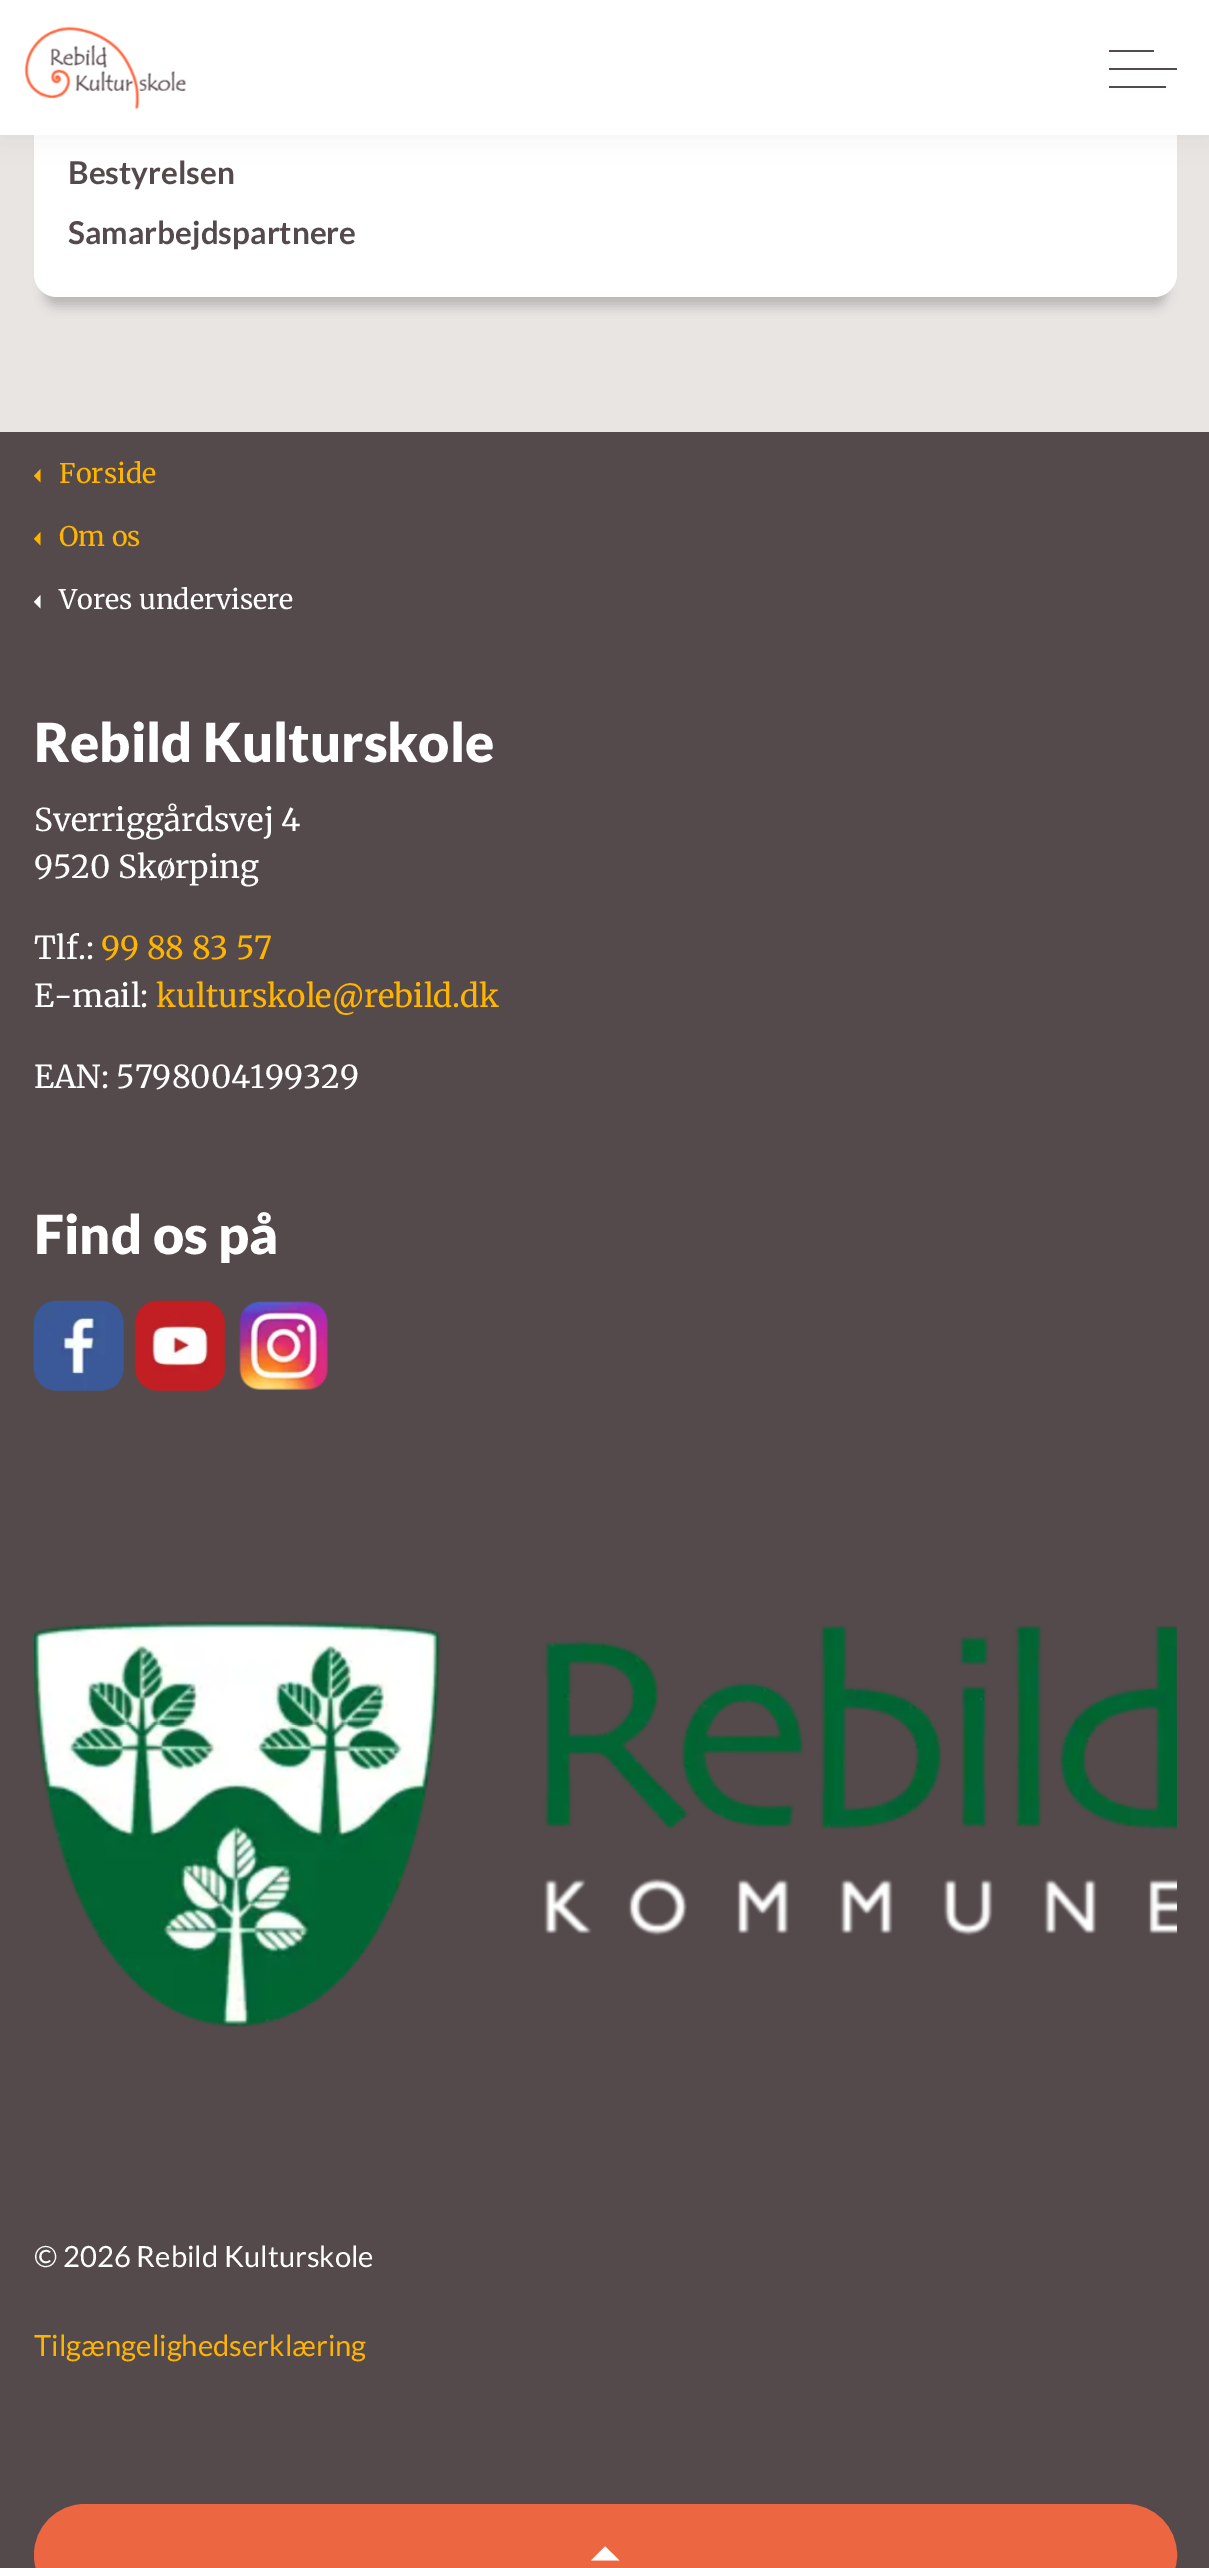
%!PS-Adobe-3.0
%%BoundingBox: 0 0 1209 2568
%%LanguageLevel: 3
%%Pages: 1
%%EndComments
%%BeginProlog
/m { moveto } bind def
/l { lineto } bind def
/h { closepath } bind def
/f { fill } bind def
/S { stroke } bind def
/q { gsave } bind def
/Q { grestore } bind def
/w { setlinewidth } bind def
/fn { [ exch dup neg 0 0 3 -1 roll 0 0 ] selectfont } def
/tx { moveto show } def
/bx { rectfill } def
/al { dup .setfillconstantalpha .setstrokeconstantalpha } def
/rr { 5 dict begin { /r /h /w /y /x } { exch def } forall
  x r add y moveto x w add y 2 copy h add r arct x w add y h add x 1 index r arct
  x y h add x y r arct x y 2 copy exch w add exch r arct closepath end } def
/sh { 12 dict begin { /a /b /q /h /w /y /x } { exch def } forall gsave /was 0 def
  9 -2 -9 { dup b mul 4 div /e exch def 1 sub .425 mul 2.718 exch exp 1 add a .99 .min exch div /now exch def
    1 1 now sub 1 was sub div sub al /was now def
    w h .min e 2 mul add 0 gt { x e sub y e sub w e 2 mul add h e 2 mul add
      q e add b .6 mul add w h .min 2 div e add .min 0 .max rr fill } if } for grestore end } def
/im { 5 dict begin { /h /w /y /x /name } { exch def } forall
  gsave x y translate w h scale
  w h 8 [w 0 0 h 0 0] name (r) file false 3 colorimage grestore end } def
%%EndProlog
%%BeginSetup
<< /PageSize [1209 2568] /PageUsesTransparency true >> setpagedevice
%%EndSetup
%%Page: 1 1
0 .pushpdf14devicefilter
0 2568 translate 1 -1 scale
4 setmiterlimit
0.91 0.898 0.89 setrgbcolor
0 0 1209 2568 bx
0 setgray
45 -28 1121 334 11 5.5 0.2 sh
1 setgray
34 -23 1143 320 23 rr f
0 setgray
0 0 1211 135 0 17 0.05 sh
1 setgray
0 0 1209 135 bx
(image0.raw) 24 26 162 84 im
0.329 0.29 0.294 setrgbcolor
1109 68 68 2 bx
1109 50 45 2 bx
1109 86 57 2 bx
/Lato-Bold 31.5 fn
(Bestyrelsen) 68 184 tx
(Samarbejdspartnere) 68 244 tx
0 432 1209 2136 bx
1 0.706 0 setrgbcolor
40.5 469 m 40.5 482.5 l 34 476 l h f
/Merriweather-Regular 27 fn
(Forside) 59 483 tx
40.5 532 m 40.5 545.5 l 34 539 l h f
(Om os) 59 546 tx
1 setgray
40.5 595 m 40.5 608.5 l 34 602 l h f
(Vores undervisere) 59 609 tx
/Lato-Black 54 fn
(Rebild Kulturskole) 34 762 tx
/Merriweather-Regular 31.5 fn
(Sverriggårdsvej 4) 34 831 tx
(9520 Skørping) 34 878 tx
(Tlf.:) 34 959 tx
1 0.706 0 setrgbcolor
(99 88 83 57) 101 959 tx
1 setgray
(E-mail:) 34 1007 tx
1 0.706 0 setrgbcolor
(kulturskole@rebild.dk) 156 1007 tx
1 setgray
(EAN: 5798004199329) 34 1088 tx
/Lato-Black 54 fn
(Find os på) 34 1254 tx
(image1.raw) 33 1300 91 91 im
(image2.raw) 134 1300 92 91 im
(image3.raw) 239 1301 90 89 im
(image4.raw) 34 1621 1143 406 im
/Lato-Regular 29.25 fn
(© 2026 Rebild Kulturskole) 34 2267 tx
1 0.706 0 setrgbcolor
(Tilgængelighedserklæring) 34 2356 tx
0.925 0.4 0.259 setrgbcolor
35 2505 1141 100 50 rr q f Q
2 w
S
1 setgray
591 2560.5 m 605 2546.5 l 619.5 2560.5 l h f
.poppdf14devicefilter showpage
%%EOF
